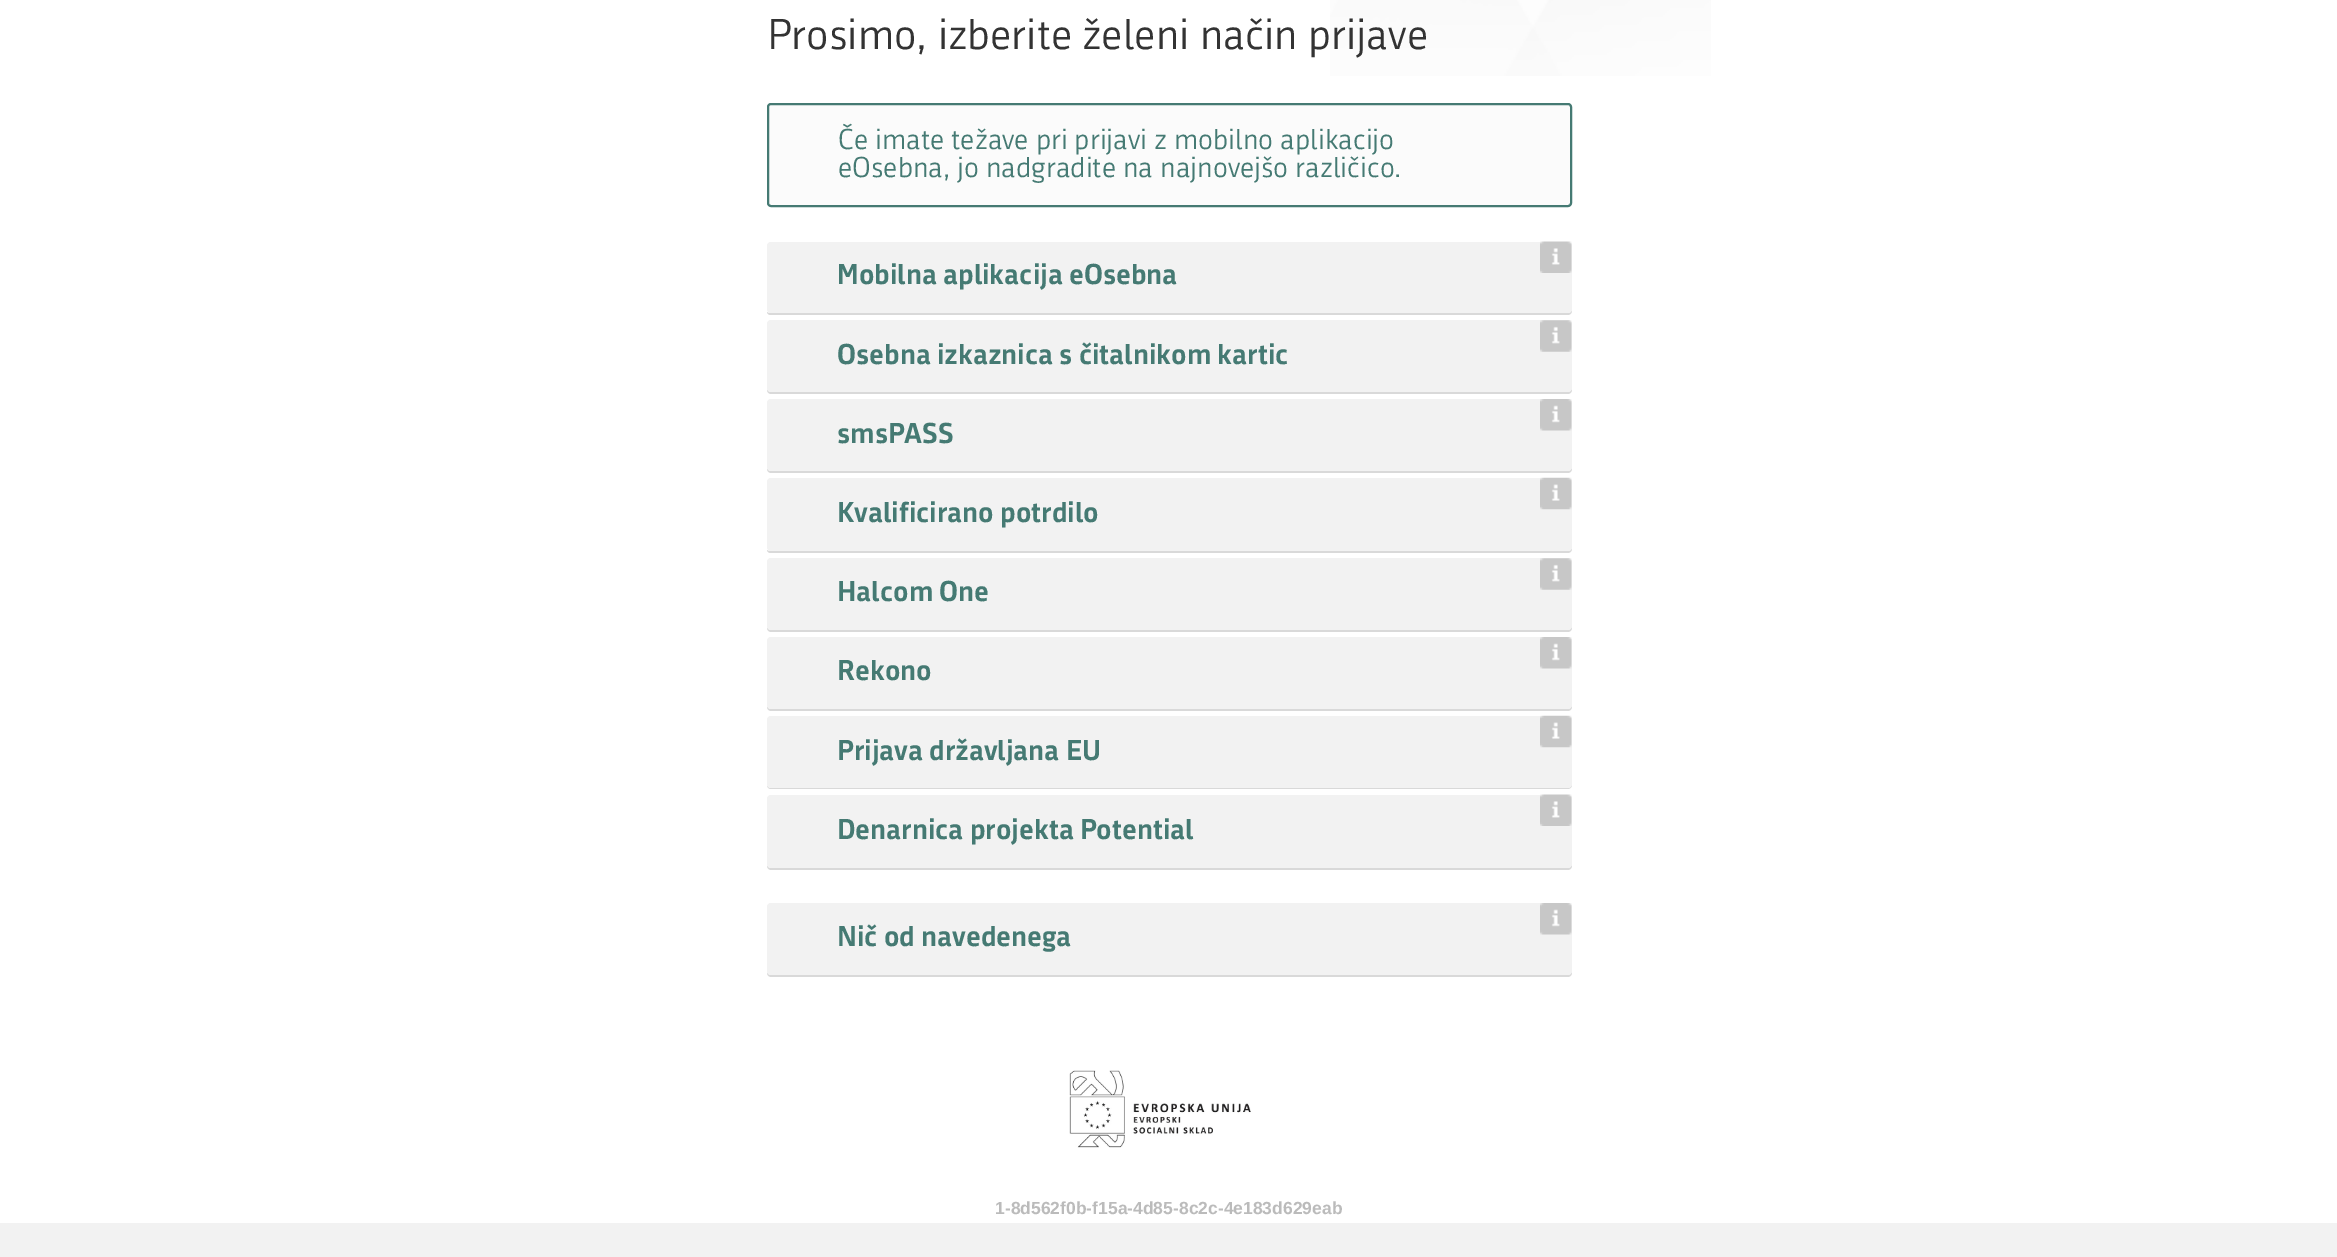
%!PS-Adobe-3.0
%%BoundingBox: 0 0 2337 1257
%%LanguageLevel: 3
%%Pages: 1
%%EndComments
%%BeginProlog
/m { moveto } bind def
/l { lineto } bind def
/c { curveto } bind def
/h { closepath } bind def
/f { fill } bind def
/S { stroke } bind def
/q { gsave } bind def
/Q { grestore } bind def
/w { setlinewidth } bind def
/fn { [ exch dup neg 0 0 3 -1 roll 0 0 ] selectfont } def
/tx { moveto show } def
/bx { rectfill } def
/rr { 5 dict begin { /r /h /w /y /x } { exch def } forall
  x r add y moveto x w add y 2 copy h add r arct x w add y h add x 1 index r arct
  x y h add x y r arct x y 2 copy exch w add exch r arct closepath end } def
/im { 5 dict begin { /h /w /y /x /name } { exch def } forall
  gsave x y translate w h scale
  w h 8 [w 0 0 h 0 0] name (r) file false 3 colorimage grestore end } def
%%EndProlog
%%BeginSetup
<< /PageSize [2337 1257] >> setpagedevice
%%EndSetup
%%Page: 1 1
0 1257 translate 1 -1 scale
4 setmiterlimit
1 setgray
0 0 2337 1257 bx
(image0.raw) 1330 0 381 76 im
/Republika-Regular 42 fn
0.2 setgray
(Prosimo, izberite želeni način prijave) 767 49 tx
0.984 setgray
768 104 803 102 3 rr q f Q
0.271 0.478 0.451 setrgbcolor
2 w
S
/Republika-Regular 28 fn
(Če imate težave pri prijavi z mobilno aplikacijo) 838 149 tx
(eOsebna, jo nadgradite na najnovejšo različico.) 838 177 tx
0.851 setgray
767 312 m 767 314 769 315 771 315 c 1568 315 l 1570 315 1572 313 1572 311 c 1572 247 l 1572 245 l 1572 310 l 1572 312 1570 313 1568 313 c 770 313 l 769 313 768 313 767 312 c h f
0.949 setgray
767 242 805 71 4 rr f
(image1.raw) 1540 241 32 32 im
/Republika-Bold 28 fn
0.271 0.478 0.451 setrgbcolor
(Mobilna aplikacija eOsebna) 837 284 tx
0.851 setgray
767 390 m 767 392 769 394 771 394 c 1568 394 l 1570 394 1572 392 1572 390 c 1572 326 l 1572 324 l 1572 388 l 1572 390 1570 392 1568 392 c 770 392 l 769 392 768 391 767 390 c h f
0.949 setgray
767 320 805 72 4 rr f
0.271 0.478 0.451 setrgbcolor
(Osebna izkaznica s čitalnikom kartic) 837 364 tx
(image2.raw) 1540 320 32 32 im
0.851 setgray
767 469 m 767 471 769 473 771 473 c 1568 473 l 1570 473 1572 471 1572 469 c 1572 405 l 1572 403 l 1572 467 l 1572 469 1570 471 1568 471 c 770 471 l 769 471 768 470 767 469 c h f
0.949 setgray
767 399 805 72 4 rr f
0.271 0.478 0.451 setrgbcolor
(smsPASS) 837 443 tx
(image3.raw) 1540 399 32 32 im
0.851 setgray
767 550 m 767 552 769 553 771 553 c 1568 553 l 1570 553 1572 551 1572 549 c 1572 484 l 1572 482 l 1572 548 l 1572 550 1570 551 1568 551 c 770 551 l 769 551 768 551 767 550 c h f
0.949 setgray
767 478 805 73 4 rr f
(image4.raw) 1540 477 32 33 im
0.271 0.478 0.451 setrgbcolor
(Kvalificirano potrdilo) 837 522 tx
0.851 setgray
767 628 m 767 630 769 632 771 632 c 1568 632 l 1570 632 1572 630 1572 628 c 1572 564 l 1572 562 l 1572 626 l 1572 628 1570 630 1568 630 c 770 630 l 769 630 768 629 767 628 c h f
0.949 setgray
767 558 805 72 4 rr f
0.271 0.478 0.451 setrgbcolor
(Halcom One) 837 601 tx
(image2.raw) 1540 558 32 32 im
0.851 setgray
767 707 m 767 709 769 711 771 711 c 1568 711 l 1570 711 1572 709 1572 707 c 1572 643 l 1572 641 l 1572 705 l 1572 707 1570 709 1568 709 c 770 709 l 769 709 768 708 767 707 c h f
0.949 setgray
767 637 805 72 4 rr f
0.271 0.478 0.451 setrgbcolor
(Rekono) 837 680 tx
(image3.raw) 1540 637 32 32 im
0.851 setgray
767 786 m 768 788 769 789 771 789 c 1568 789 l 1570 789 1572 787 1572 785 c 1572 722 l 1572 720 l 1572 784 l 1572 786 1570 788 1568 788 c 770 788 l 769 788 768 787 767 786 c h f
0.949 setgray
767 716 805 72 4 rr f
(image5.raw) 1540 715 32 33 im
0.271 0.478 0.451 setrgbcolor
(Prijava državljana EU) 837 760 tx
0.851 setgray
767 866 m 767 868 769 870 771 870 c 1568 870 l 1570 870 1572 868 1572 866 c 1572 800 l 1572 798 l 1572 864 l 1572 866 1570 868 1568 868 c 770 868 l 769 868 768 867 767 866 c h f
0.949 setgray
767 795 805 73 4 rr f
(image1.raw) 1540 794 32 32 im
0.271 0.478 0.451 setrgbcolor
(Denarnica projekta Potential) 837 839 tx
0.851 setgray
767 973 m 767 975 769 977 771 977 c 1568 977 l 1570 977 1572 975 1572 973 c 1572 909 l 1572 907 l 1572 971 l 1572 973 1570 975 1568 975 c 770 975 l 769 975 768 974 767 973 c h f
0.949 setgray
767 903 805 72 4 rr f
(image3.raw) 1540 903 32 32 im
0.271 0.478 0.451 setrgbcolor
(Nič od navedenega) 837 946 tx
0.949 setgray
0 1223 2337 34 bx
(image6.raw) 1069 1070 182 78 im
/LiberationSans-Bold 17.5 fn
0.733 setgray
(1-8d562f0b-f15a-4d85-8c2c-4e183d629eab) 995 1214 tx
showpage
%%EOF
